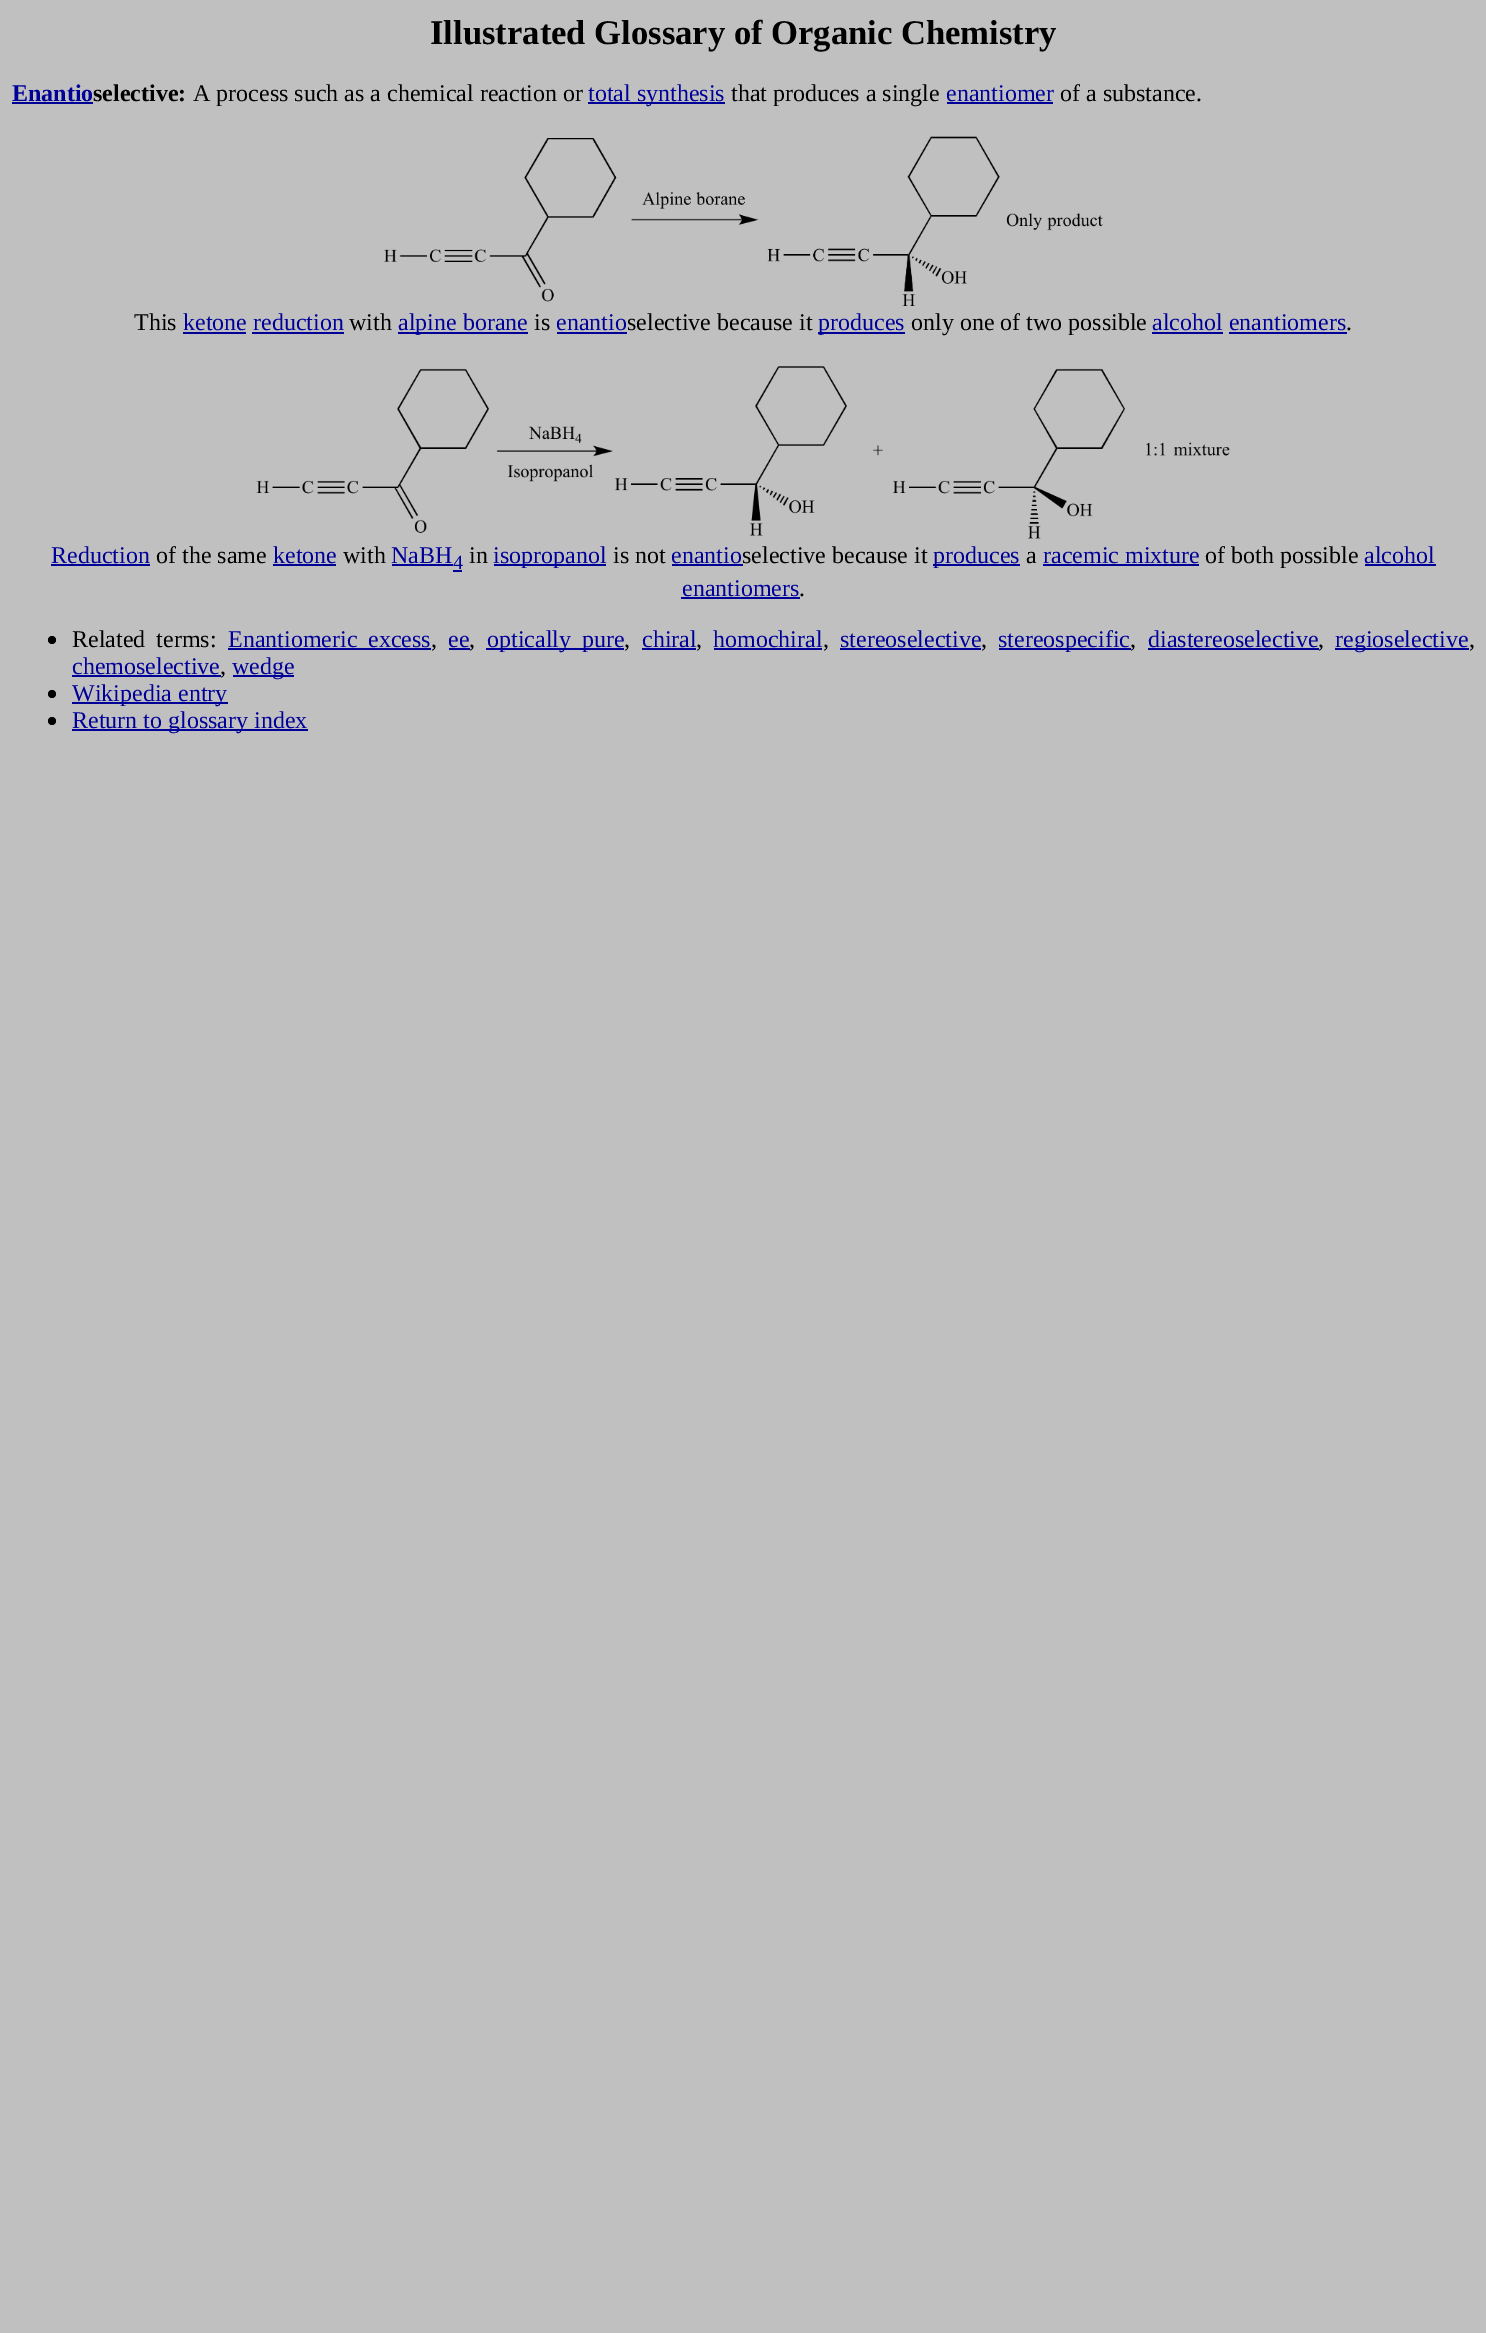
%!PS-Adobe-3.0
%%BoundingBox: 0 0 1486 2333
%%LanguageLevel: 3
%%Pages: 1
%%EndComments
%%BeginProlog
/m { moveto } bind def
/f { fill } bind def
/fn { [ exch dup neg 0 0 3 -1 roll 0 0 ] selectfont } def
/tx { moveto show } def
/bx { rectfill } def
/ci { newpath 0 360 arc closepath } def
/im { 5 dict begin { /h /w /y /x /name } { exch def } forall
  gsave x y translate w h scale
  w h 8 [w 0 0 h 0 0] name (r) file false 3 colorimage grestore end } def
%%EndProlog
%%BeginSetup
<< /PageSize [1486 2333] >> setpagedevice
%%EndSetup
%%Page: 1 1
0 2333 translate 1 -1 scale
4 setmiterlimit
0.753 setgray
0 0 1486 2333 bx
/LiberationSerif-Bold 34.6 fn
0 setgray
(Illustrated Glossary of Organic Chemistry) 430 44 tx
/LiberationSerif-Bold 24 fn
0 0 0.6 setrgbcolor
(Enantio) 12 101 tx
12 102 81 2 bx
0 setgray
(selective:) 93 101 tx
/LiberationSerif-Regular 24 fn
(A process such as a chemical reaction or) 193 101 tx
0 0 0.6 setrgbcolor
588 102 137 2 bx
(total synthesis) 588 101 tx
0 setgray
(that produces a single) 731 101 tx
0 0 0.6 setrgbcolor
(enantiomer) 946 101 tx
947 102 106 2 bx
0 setgray
(of a substance.) 1060 101 tx
(image0.raw) 384 136 719 170 im
(This) 134 330 tx
0 0 0.6 setrgbcolor
(ketone reduction) 183 330 tx
183 332 63 2 bx
0 setgray
(with) 349 330 tx
0 0 0.6 setrgbcolor
398 332 130 2 bx
(alpine borane) 398 330 tx
0 setgray
(is) 534 330 tx
0 0 0.6 setrgbcolor
(enantio) 556 330 tx
557 332 70 2 bx
0 setgray
(selective because it) 627 330 tx
0 0 0.6 setrgbcolor
818 332 87 2 bx
(produces) 818 330 tx
0 setgray
(only one of two possible) 911 330 tx
0 0 0.6 setrgbcolor
(alcohol enantiomers) 1152 330 tx
1152 332 71 2 bx
0 setgray
(.) 1346 330 tx
0 0 0.6 setrgbcolor
252 332 92 2 bx
1229 332 118 2 bx
(image1.raw) 256 366 974 173 im
(Reduction) 51 563 tx
51 564 99 2 bx
0 setgray
(of the same) 156 563 tx
0 0 0.6 setrgbcolor
(ketone) 273 563 tx
273 564 63 2 bx
0 setgray
(with) 343 563 tx
0 0 0.6 setrgbcolor
(NaBH) 391 563 tx
/LiberationSerif-Regular 20 fn
(4) 453 569 tx
392 564 61 2 bx
453 570 9 2 bx
/LiberationSerif-Regular 24 fn
0 setgray
(in) 469 563 tx
0 0 0.6 setrgbcolor
494 564 112 2 bx
(isopropanol) 493 563 tx
0 setgray
(is not) 613 563 tx
0 0 0.6 setrgbcolor
(enantio) 671 563 tx
672 564 71 2 bx
0 setgray
(selective because it) 742 563 tx
0 0 0.6 setrgbcolor
933 564 87 2 bx
(produces) 933 563 tx
0 setgray
(a) 1026 563 tx
0 0 0.6 setrgbcolor
(racemic mixture) 1043 563 tx
1043 564 156 2 bx
0 setgray
(of both possible) 1205 563 tx
0 0 0.6 setrgbcolor
(alcohol) 1364 563 tx
1365 564 71 2 bx
(enantiomers) 682 596 tx
681 597 119 2 bx
0 setgray
(.) 799 596 tx
52 640 4 ci f
72 647 m 5 0 32 (Related terms:) widthshow
0 0 0.6 setrgbcolor
(Enantiomeric) 228 647 tx
(excess) 368 647 tx
228 648 203 2 bx
0 setgray
(,) 431 647 tx
0 0 0.6 setrgbcolor
(ee) 448 647 tx
449 648 21 2 bx
0 setgray
(,) 469 647 tx
0 0 0.6 setrgbcolor
486 648 138 2 bx
(optically) 487 647 tx
(pure) 582 647 tx
0 setgray
(,) 624 647 tx
0 0 0.6 setrgbcolor
(chiral) 642 647 tx
642 648 54 2 bx
0 setgray
(,) 696 647 tx
0 0 0.6 setrgbcolor
(homochiral) 713 647 tx
714 648 108 2 bx
0 setgray
(,) 823 647 tx
0 0 0.6 setrgbcolor
(stereoselective) 840 647 tx
840 648 141 2 bx
0 setgray
(,) 981 647 tx
0 0 0.6 setrgbcolor
999 648 132 2 bx
(stereospecific) 998 647 tx
0 setgray
(,) 1130 647 tx
0 0 0.6 setrgbcolor
(diastereoselective) 1148 647 tx
1148 648 171 2 bx
0 setgray
(,) 1318 647 tx
0 0 0.6 setrgbcolor
1335 648 134 2 bx
(regioselective) 1335 647 tx
0 setgray
(,) 1469 647 tx
0 0 0.6 setrgbcolor
(chemoselective) 72 674 tx
72 675 149 2 bx
0 setgray
(,) 220 674 tx
0 0 0.6 setrgbcolor
233 675 61 2 bx
(wedge) 232 674 tx
0 setgray
52 694 4 ci f
0 0 0.6 setrgbcolor
72 702 156 2 bx
(Wikipedia entry) 72 701 tx
0 setgray
52 721 4 ci f
0 0 0.6 setrgbcolor
72 729 236 2 bx
(Return to glossary index) 72 728 tx
showpage
%%EOF
